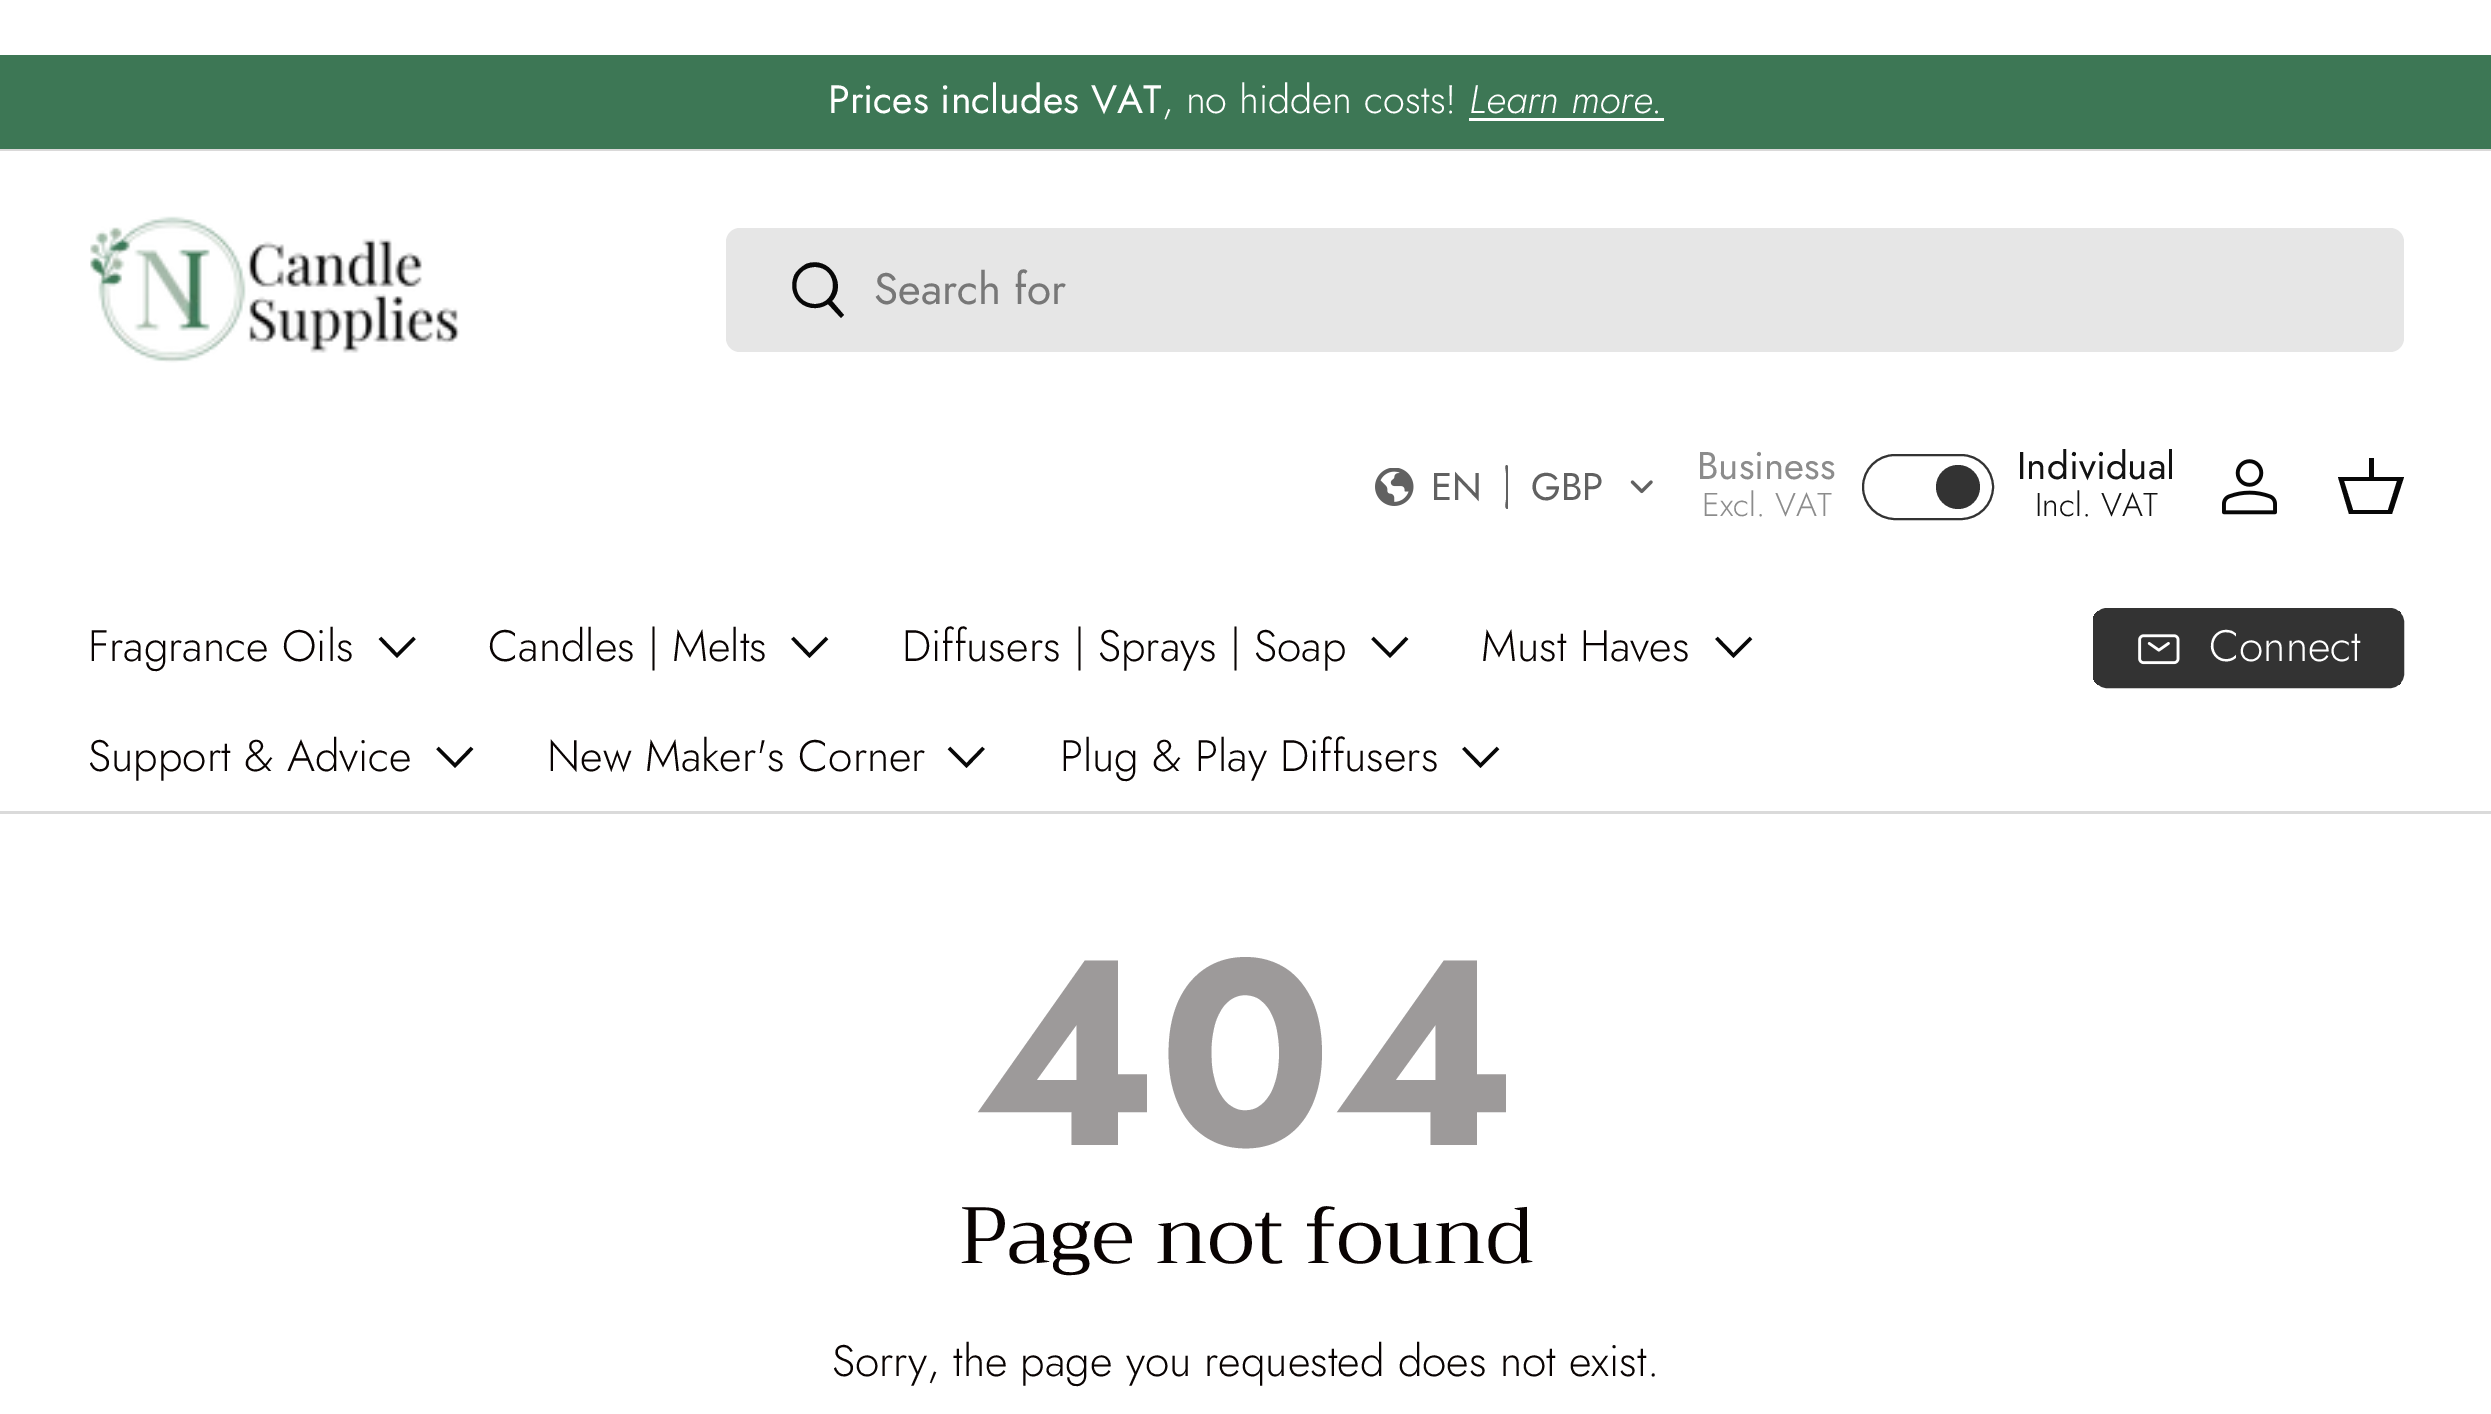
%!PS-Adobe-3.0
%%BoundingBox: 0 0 2491 1414
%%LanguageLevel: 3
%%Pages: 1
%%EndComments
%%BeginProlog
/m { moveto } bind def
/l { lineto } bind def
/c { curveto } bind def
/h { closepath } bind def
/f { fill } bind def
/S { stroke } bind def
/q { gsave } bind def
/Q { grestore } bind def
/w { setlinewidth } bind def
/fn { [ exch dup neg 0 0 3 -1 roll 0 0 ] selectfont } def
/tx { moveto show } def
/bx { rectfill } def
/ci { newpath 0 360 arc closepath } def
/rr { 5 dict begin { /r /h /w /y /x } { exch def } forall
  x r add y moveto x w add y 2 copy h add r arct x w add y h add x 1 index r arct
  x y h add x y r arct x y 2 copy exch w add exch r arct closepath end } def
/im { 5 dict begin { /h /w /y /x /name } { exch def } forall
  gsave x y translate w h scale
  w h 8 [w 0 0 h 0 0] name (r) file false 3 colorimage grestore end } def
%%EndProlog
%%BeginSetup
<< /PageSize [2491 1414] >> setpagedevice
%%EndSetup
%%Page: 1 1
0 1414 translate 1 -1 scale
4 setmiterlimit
1 setgray
0 0 2491 1414 bx
0.239 0.467 0.333 setrgbcolor
0 55 2491 94 bx
/Jost-Regular 39.5 fn
1 setgray
(Prices includes VAT) 828 113 tx
/Jost-Light 39.5 fn
(, no hidden costs!) 1162 113 tx
/Jost-LightItalic 39.5 fn
(Learn more.) 1469 113 tx
1469 118 195 3 bx
0.855 0.851 0.851 setrgbcolor
0 149 2491 2 bx
0.855 setgray
0 811 2491 3 bx
(image0.raw) 90 216 370 147 im
0.902 setgray
726 228 1678 124 14 rr f
0.027 setgray
832 301 m 844 315 l 841 318 l 828 304 l 818 311 803 309 796 298 c 792 292 791 284 794 276 c 796 271 801 267 806 264 c 829 255 848 284 832 301 c h 815 304 m 839 304 839 267 815 267 c 790 267 790 304 815 304 c h f
/Jost-Regular 44 fn
0.467 setgray
(Search for) 874 304 tx
(image1.raw) 1375 468 39 38 im
/Jost-Regular 38.5 fn
0.38 setgray
(EN) 1431 500 tx
1508 507 m 1508 508 1508 509 1507 509 c 1504 508 1506 502 1506 500 c 1506 473 l 1506 470 1504 465 1507 465 c 1508 466 l h f
(GBP) 1531 500 tx
(image2.raw) 1630 480 23 14 im
0.549 setgray
(Business) 1697 479 tx
/Jost-Light 33 fn
(Excl. VAT) 1702 516 tx
0.2 setgray
2 w
1863 455 130 64 32 rr S
1958 487 22 ci f
/Jost-Regular 38.5 fn
0.071 setgray
(Individual) 2017 479 tx
/Jost-Light 33 fn
(Incl. VAT) 2035 516 tx
(image3.raw) 2222 459 55 56 im
0.027 setgray
2369 477 m 2369 458 l 2374 458 l 2374 477 l 2404 477 l 2392 514 l 2349 514 l 2338 477 l h 2344 481 m 2353 510 l 2388 510 l 2397 481 l h f
/Jost-Light 44 fn
0.035 0.012 0.008 setrgbcolor
(Fragrance Oils) 88 661 tx
0.027 setgray
3.4 w
414.5 638 m 397 655.5 l 380 638 l S
0.035 0.012 0.008 setrgbcolor
(Candles | Melts) 488 661 tx
0.027 setgray
827 638 m 809.5 655.5 l 792.5 638 l S
0.035 0.012 0.008 setrgbcolor
(Diffusers | Sprays | Soap) 902 661 tx
0.027 setgray
1407 638 m 1390 655.5 l 1372.5 638 l S
0.035 0.012 0.008 setrgbcolor
(Must Haves) 1481 661 tx
0.027 setgray
1751 638 m 1733.5 655.5 l 1716.5 638 l S
0.035 0.012 0.008 setrgbcolor
(Support & Advice) 88 771 tx
0.027 setgray
472 748 m 455 765.5 l 437.5 748 l S
0.035 0.012 0.008 setrgbcolor
(New Maker's Corner) 547 771 tx
0.027 setgray
983.5 748 m 966.5 765.5 l 949 748 l S
0.035 0.012 0.008 setrgbcolor
(Plug & Play Diffusers) 1060 771 tx
0.027 setgray
1498 748 m 1480.5 765.5 l 1463.5 748 l S
q
2093 608 311 80 14 rr clip newpath
q 2093 611 m 2401 611 l 2401 685 l 2093 685 l h clip newpath
<< /ShadingType 2 /ColorSpace /DeviceRGB /Coords [1503 538 2383 757] /Extend [true true] /Function << /FunctionType 3 /Domain [0 1] /Functions [<< /FunctionType 2 /Domain [0 1] /C0 [0.353 0.353 0.353] /C1 [0.353 0.353 0.353] /N 1 >> << /FunctionType 2 /Domain [0 1] /C0 [0.2 0.2 0.2] /C1 [0.2 0.2 0.2] /N 1 >>] /Bounds [0.6] /Encode [0 1 0 1] >> >> shfill Q
Q
0.2 setgray
3 w
2094.5 609.5 308 77 12.5 rr S
(image4.raw) 2138 634 42 31 im
1 setgray
(Connect) 2209 661 tx
/Jost-Bold 264 fn
0.616 0.604 0.604 setrgbcolor
(404) 974 1145 tx
/Trirong-Regular 79.5 fn
0.035 0.012 0.008 setrgbcolor
(Page not found) 959 1263 tx
/Jost-Light 44 fn
(Sorry, the page you requested does not exist.) 832 1376 tx
showpage
%%EOF
